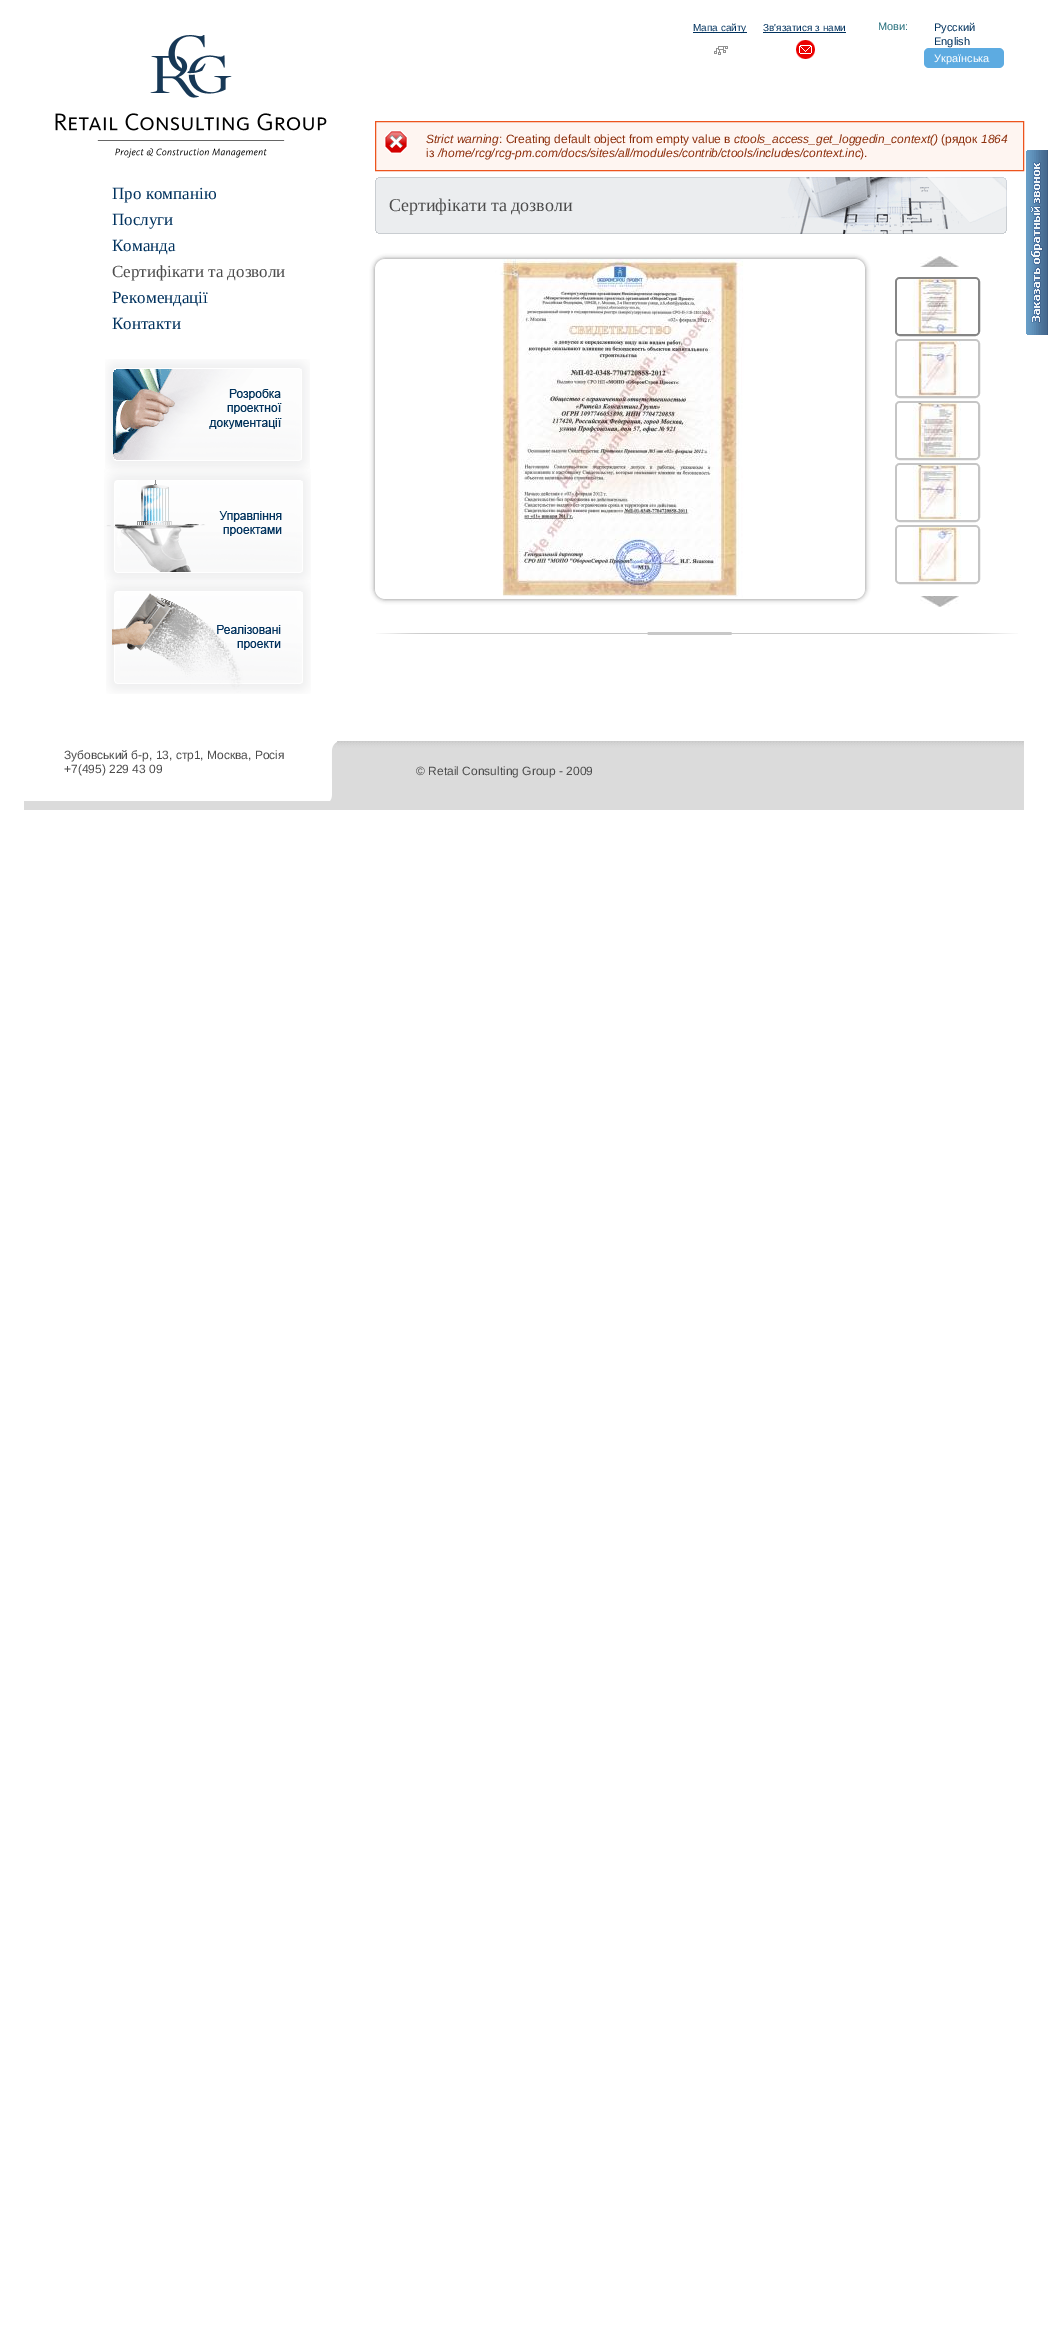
%!PS-Adobe-3.0
%%BoundingBox: 0 0 1048 2350
%%LanguageLevel: 3
%%Pages: 1
%%EndComments
%%BeginProlog
/f { fill } bind def
/S { stroke } bind def
/w { setlinewidth } bind def
/fn { [ exch dup neg 0 0 3 -1 roll 0 0 ] selectfont } def
/tx { moveto show } def
/bx { rectfill } def
/al { dup .setfillconstantalpha .setstrokeconstantalpha } def
/rr { 5 dict begin { /r /h /w /y /x } { exch def } forall
  x r add y moveto x w add y 2 copy h add r arct x w add y h add x 1 index r arct
  x y h add x y r arct x y 2 copy exch w add exch r arct closepath end } def
/sh { 12 dict begin { /a /b /q /h /w /y /x } { exch def } forall gsave /was 0 def
  9 -2 -9 { dup b mul 4 div /e exch def 1 sub .425 mul 2.718 exch exp 1 add a .99 .min exch div /now exch def
    1 1 now sub 1 was sub div sub al /was now def
    w h .min e 2 mul add 0 gt { x e sub y e sub w e 2 mul add h e 2 mul add
      q e add b .6 mul add w h .min 2 div e add .min 0 .max rr fill } if } for grestore end } def
/im { 5 dict begin { /h /w /y /x /name } { exch def } forall
  gsave x y translate w h scale
  w h 8 [w 0 0 h 0 0] name (r) file false 3 colorimage grestore end } def
%%EndProlog
%%BeginSetup
<< /PageSize [1048 2350] /PageUsesTransparency true >> setpagedevice
%%EndSetup
%%Page: 1 1
0 .pushpdf14devicefilter
0 2350 translate 1 -1 scale
4 setmiterlimit
1 setgray
0 0 1048 2350 bx
0 0.192 0.365 setrgbcolor
693 32 54 1 bx
/LiberationSans-Regular 10 fn
(Мапа сайту) 693 31 tx
(image0.raw) 714 46 14 9 im
(Зв'язатися з нами) 763 31 tx
763 32 83 1 bx
(image1.raw) 796 40 19 19 im
/LiberationSans-Regular 11 fn
0.157 0.439 0.49 setrgbcolor
(Мови:) 878 30 tx
0 0.192 0.365 setrgbcolor
(Русский) 934 31 tx
(English) 934 45 tx
0.365 0.671 0.882 setrgbcolor
924 48 80 20 5 rr f
1 setgray
(Українська) 934 62 tx
0.996 0.961 0.945 setrgbcolor
376 122 647 48 bx
(image2.raw) 384 130 24 24 im
0.929 0.329 0.114 setrgbcolor
375.5 121.5 648 49 rectstroke
/LiberationSans-Italic 12 fn
0.549 0.18 0.043 setrgbcolor
(Strict warning) 426 143 tx
/LiberationSans-Regular 12 fn
(: Creating default object from empty value в) 499 143 tx
/LiberationSans-Italic 12 fn
(ctools_access_get_loggedin_context\(\)) 734 143 tx
/LiberationSans-Regular 12 fn
(\(рядок) 941 143 tx
/LiberationSans-Italic 12 fn
(1864) 981 143 tx
/LiberationSans-Regular 12 fn
(із) 426 157 tx
/LiberationSans-Italic 12 fn
(/home/rcg/rcg-pm.com/docs/sites/all/modules/contrib/ctools/includes/context.inc) 438 157 tx
/LiberationSans-Regular 12 fn
(\).) 860 157 tx
(image3.raw) 375 177 632 57 im
/LiberationSerif-Regular 18 fn
0.298 setgray
(Сертифікати та дозволи) 389 211 tx
0.522 setgray
375 259 490 340 10 2.5 1 sh
(image4.raw) 375 259 490 340 im
(image5.raw) 920 256 39 11 im
2 w
896 278 83 57 4 rr S
(image6.raw) 897 279 81 55 im
0.773 setgray
896 340 83 57 4 rr S
(image7.raw) 897 341 81 55 im
896 402 83 57 4 rr S
(image8.raw) 897 403 81 55 im
896 464 83 57 4 rr S
(image9.raw) 897 465 81 55 im
896 526 83 57 4 rr S
(image10.raw) 897 527 81 55 im
(image11.raw) 920 596 39 11 im
(image12.raw) 376 632 642 3 im
(image13.raw) 55 35 272 123 im
/LiberationSerif-Regular 17 fn
0 0.192 0.365 setrgbcolor
(Про компанію) 112 199 tx
(Послуги) 112 225 tx
(Команда) 112 251 tx
0.298 setgray
(Сертифікати та дозволи) 112 277 tx
0 0.192 0.365 setrgbcolor
(Рекомендації) 112 303 tx
(Контакти) 112 329 tx
(image14.raw) 105 359 205 110 im
(image15.raw) 104 469 207 111 im
(image16.raw) 106 580 205 114 im
(image17.raw) 24 741 1000 69 im
1 setgray
24 741 313 60 bx
(image18.raw) 330 742 7 59 im
/LiberationSans-Regular 12 fn
0.298 setgray
(Зубовський б-р, 13, стр1, Москва, Росія) 64 759 tx
(+7\(495\) 229 43 09) 64 773 tx
(© Retail Consulting Group - 2009) 416 775 tx
(image19.raw) 1026 150 22 185 im
.poppdf14devicefilter showpage
%%EOF
